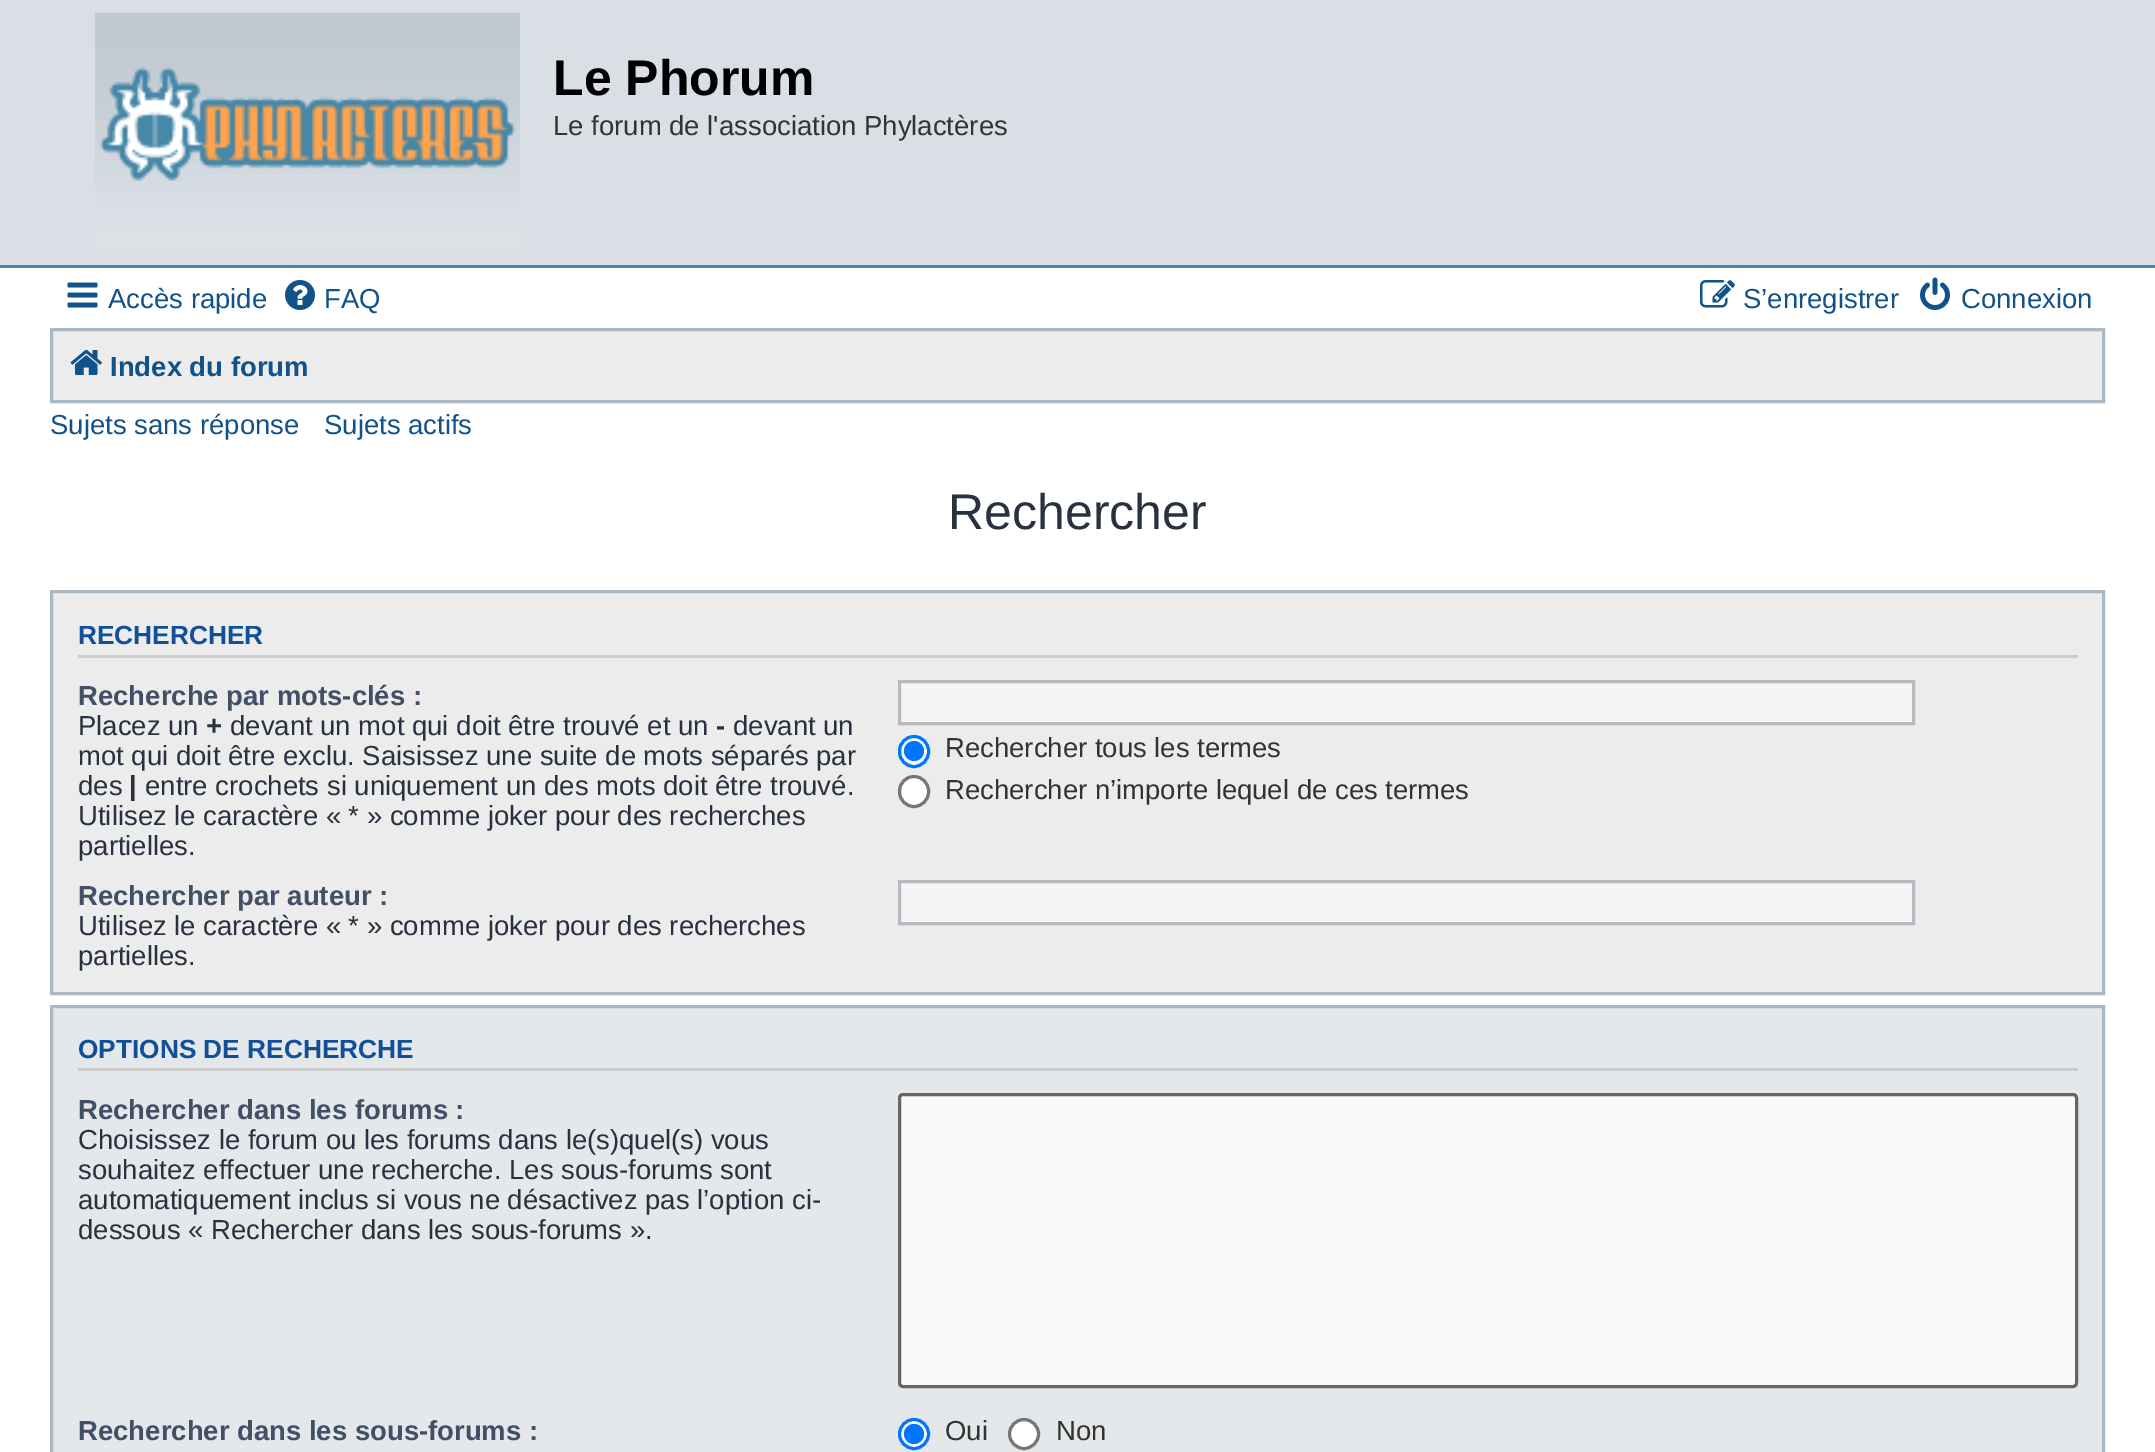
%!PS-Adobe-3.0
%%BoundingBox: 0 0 2155 1452
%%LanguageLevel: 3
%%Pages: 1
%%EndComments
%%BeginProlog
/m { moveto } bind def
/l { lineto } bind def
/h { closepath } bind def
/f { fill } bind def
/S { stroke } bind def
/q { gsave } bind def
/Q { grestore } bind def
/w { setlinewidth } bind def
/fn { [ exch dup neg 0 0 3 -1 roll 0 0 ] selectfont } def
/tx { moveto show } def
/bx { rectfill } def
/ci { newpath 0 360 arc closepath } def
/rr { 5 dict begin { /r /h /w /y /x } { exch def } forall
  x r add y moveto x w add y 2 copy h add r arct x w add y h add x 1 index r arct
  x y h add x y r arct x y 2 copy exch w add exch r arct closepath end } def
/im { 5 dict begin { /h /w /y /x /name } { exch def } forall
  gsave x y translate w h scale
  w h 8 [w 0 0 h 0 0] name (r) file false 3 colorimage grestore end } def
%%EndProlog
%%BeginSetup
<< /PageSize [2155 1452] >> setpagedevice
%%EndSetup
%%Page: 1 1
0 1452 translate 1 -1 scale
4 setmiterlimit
1 setgray
0 0 2155 1452 bx
0.851 0.875 0.894 setrgbcolor
0 0 2155 265 bx
0.278 0.529 0.655 setrgbcolor
0 265 2155 3 bx
(image0.raw) 95 12 425 235 im
/LiberationSans-Bold 50 fn
0 setgray
(Le Phorum) 553 95 tx
/LiberationSans-Regular 27.5 fn
0.2 setgray
(Le forum de l'association Phylactères) 553 135 tx
(image1.raw) 67 282 31 26 im
0.063 0.322 0.537 setrgbcolor
(Accès rapide) 108 308 tx
(image2.raw) 285 280 30 30 im
(FAQ) 324 308 tx
(image3.raw) 1700 280 35 28 im
(S’enregistrer) 1743 308 tx
(image4.raw) 1920 277 30 33 im
(Connexion) 1961 308 tx
0.925 setgray
51.5 329.5 m 2103.5 329.5 l 2103.5 401.5 l 51.5 401.5 l h q f Q
0.663 0.722 0.761 setrgbcolor
3 w
S
(image5.raw) 70 349 32 26 im
/LiberationSans-Bold 27.5 fn
0.063 0.322 0.537 setrgbcolor
(Index du forum) 110 376 tx
/LiberationSans-Regular 27.5 fn
(Sujets sans réponse) 50 434 tx
(Sujets actifs) 324 434 tx
/LiberationSans-Regular 50 fn
0.157 0.192 0.247 setrgbcolor
(Rechercher) 948 529 tx
0.925 setgray
51.5 591.5 m 2103.5 591.5 l 2103.5 993.5 l 51.5 993.5 l h q f Q
0.663 0.722 0.761 setrgbcolor
S
0.8 setgray
78 655 2000 3 bx
/LiberationSans-Bold 26.25 fn
0.067 0.314 0.596 setrgbcolor
(RECHERCHER) 78 644 tx
/LiberationSans-Bold 27.5 fn
0.259 0.314 0.404 setrgbcolor
(Recherche par mots-clés :) 78 705 tx
/LiberationSans-Regular 27.5 fn
0.157 0.192 0.247 setrgbcolor
(Placez un) 78 735 tx
/LiberationSans-Bold 27.5 fn
(+) 206 735 tx
/LiberationSans-Regular 27.5 fn
(devant un mot qui doit être trouvé et un) 230 735 tx
/LiberationSans-Bold 27.5 fn
(-) 716 735 tx
/LiberationSans-Regular 27.5 fn
(devant un) 733 735 tx
(mot qui doit être exclu. Saisissez une suite de mots séparés par) 78 765 tx
(des) 78 795 tx
/LiberationSans-Bold 27.5 fn
(|) 129 795 tx
/LiberationSans-Regular 27.5 fn
(entre crochets si uniquement un des mots doit être trouvé.) 145 795 tx
(Utilisez le caractère « * » comme joker pour des recherches) 78 825 tx
(partielles.) 78 855 tx
0.961 setgray
899.5 681.5 m 1913.5 681.5 l 1913.5 723.5 l 899.5 723.5 l h q f Q
0.706 0.729 0.753 setrgbcolor
S
1 setgray
899.5 736.5 29 30 14.5 rr q f Q
0 0.459 1 setrgbcolor
S
914 751 10 ci f
0.2 setgray
(Rechercher tous les termes) 945 757 tx
1 setgray
899.5 776.5 29 30 14.5 rr q f Q
0.463 setgray
S
0.2 setgray
(Rechercher n’importe lequel de ces termes) 945 799 tx
/LiberationSans-Bold 27.5 fn
0.259 0.314 0.404 setrgbcolor
(Rechercher par auteur :) 78 905 tx
/LiberationSans-Regular 27.5 fn
0.157 0.192 0.247 setrgbcolor
(Utilisez le caractère « * » comme joker pour des recherches) 78 935 tx
(partielles.) 78 965 tx
0.961 setgray
899.5 881.5 m 1913.5 881.5 l 1913.5 923.5 l 899.5 923.5 l h q f Q
0.706 0.729 0.753 setrgbcolor
S
0.898 0.91 0.918 setrgbcolor
51.5 1006.5 m 2103.5 1006.5 l 2103.5 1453.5 l 51.5 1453.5 l h q f Q
0.663 0.722 0.761 setrgbcolor
S
0.8 setgray
78 1068 2000 3 bx
/LiberationSans-Bold 26.25 fn
0.067 0.314 0.596 setrgbcolor
(OPTIONS DE RECHERCHE) 78 1058 tx
/LiberationSans-Bold 27.5 fn
0.259 0.314 0.404 setrgbcolor
(Rechercher dans les forums :) 78 1119 tx
/LiberationSans-Regular 27.5 fn
0.157 0.192 0.247 setrgbcolor
(Choisissez le forum ou les forums dans le\(s\)quel\(s\) vous) 78 1149 tx
(souhaitez effectuer une recherche. Les sous-forums sont) 78 1179 tx
(automatiquement inclus si vous ne désactivez pas l’option ci-) 78 1209 tx
(dessous « Rechercher dans les sous-forums ».) 78 1239 tx
0.98 setgray
899.5 1094.5 1177 292 3.5 rr q f Q
0.4 setgray
S
/LiberationSans-Bold 27.5 fn
0.259 0.314 0.404 setrgbcolor
(Rechercher dans les sous-forums :) 78 1440 tx
1 setgray
914 1434 14.5 ci q f Q
0 0.459 1 setrgbcolor
S
914 1434 10 ci f
/LiberationSans-Regular 27.5 fn
0.2 setgray
(Oui) 945 1440 tx
1 setgray
1024 1434 14.5 ci q f Q
0.463 setgray
S
0.2 setgray
(Non) 1056 1440 tx
showpage
%%EOF
